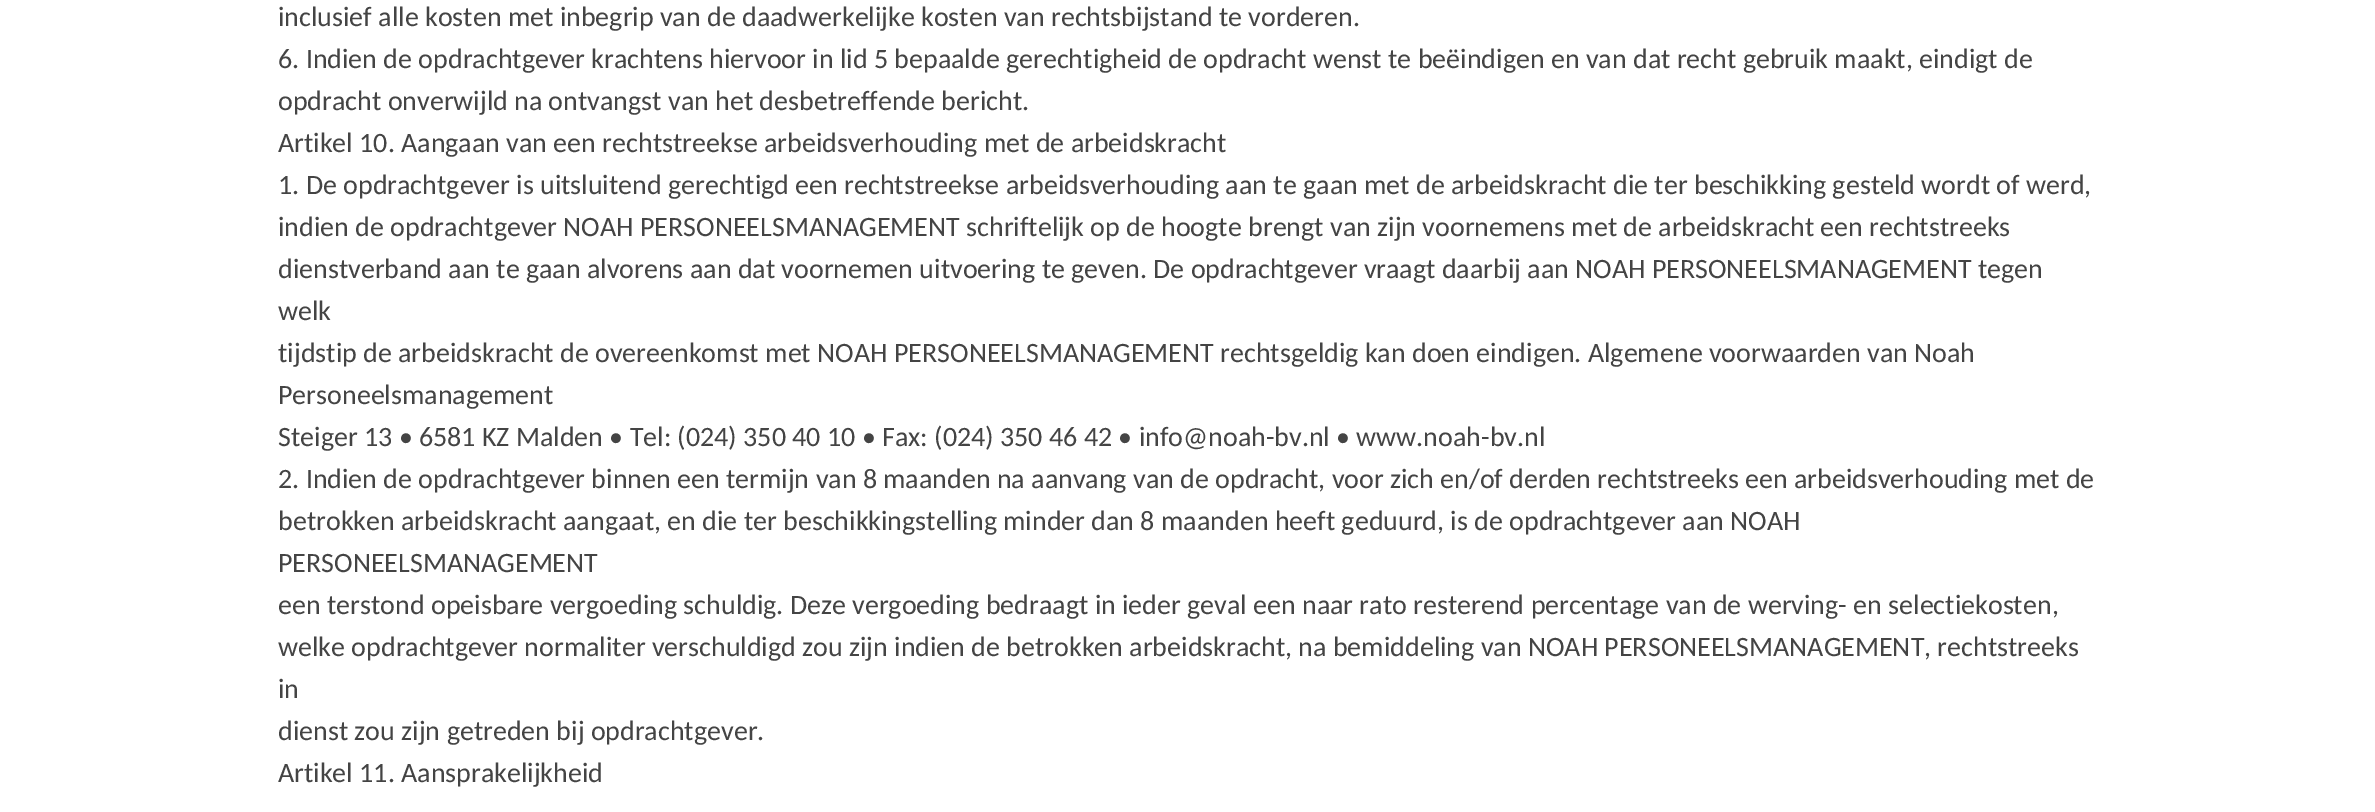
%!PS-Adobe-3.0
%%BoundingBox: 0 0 2375 812
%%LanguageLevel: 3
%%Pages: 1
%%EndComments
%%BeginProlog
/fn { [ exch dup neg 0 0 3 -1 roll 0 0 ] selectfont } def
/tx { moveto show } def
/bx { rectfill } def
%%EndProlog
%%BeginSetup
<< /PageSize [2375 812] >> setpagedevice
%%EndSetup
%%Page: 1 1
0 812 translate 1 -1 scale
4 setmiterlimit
1 setgray
0 0 2375 812 bx
/Carlito-Regular 28 fn
0.267 setgray
(inclusief alle kosten met inbegrip van de daadwerkelijke kosten van rechtsbijstand te vorderen.) 278 26 tx
(6. Indien de opdrachtgever krachtens hiervoor in lid 5 bepaalde gerechtigheid de opdracht wenst te beëindigen en van dat recht gebruik maakt, eindigt de) 278 68 tx
(opdracht onverwijld na ontvangst van het desbetreffende bericht.) 278 110 tx
(Artikel 10. Aangaan van een rechtstreekse arbeidsverhouding met de arbeidskracht) 278 152 tx
(1. De opdrachtgever is uitsluitend gerechtigd een rechtstreekse arbeidsverhouding aan te gaan met de arbeidskracht die ter beschikking gesteld wordt of werd,) 278 194 tx
(indien de opdrachtgever NOAH PERSONEELSMANAGEMENT schriftelijk op de hoogte brengt van zijn voornemens met de arbeidskracht een rechtstreeks) 278 236 tx
(dienstverband aan te gaan alvorens aan dat voornemen uitvoering te geven. De opdrachtgever vraagt daarbij aan NOAH PERSONEELSMANAGEMENT tegen) 278 278 tx
(welk) 278 320 tx
(tijdstip de arbeidskracht de overeenkomst met NOAH PERSONEELSMANAGEMENT rechtsgeldig kan doen eindigen. Algemene voorwaarden van Noah) 278 362 tx
(Personeelsmanagement) 278 404 tx
(Steiger 13 • 6581 KZ Malden • Tel: \(024\) 350 40 10 • Fax: \(024\) 350 46 42 • info@noah-bv.nl • www.noah-bv.nl) 278 446 tx
(2. Indien de opdrachtgever binnen een termijn van 8 maanden na aanvang van de opdracht, voor zich en/of derden rechtstreeks een arbeidsverhouding met de) 278 488 tx
(betrokken arbeidskracht aangaat, en die ter beschikkingstelling minder dan 8 maanden heeft geduurd, is de opdrachtgever aan NOAH) 278 530 tx
(PERSONEELSMANAGEMENT) 278 572 tx
(een terstond opeisbare vergoeding schuldig. Deze vergoeding bedraagt in ieder geval een naar rato resterend percentage van de werving- en selectiekosten,) 278 614 tx
(welke opdrachtgever normaliter verschuldigd zou zijn indien de betrokken arbeidskracht, na bemiddeling van NOAH PERSONEELSMANAGEMENT, rechtstreeks) 278 656 tx
(in) 278 698 tx
(dienst zou zijn getreden bij opdrachtgever.) 278 740 tx
(Artikel 11. Aansprakelijkheid) 278 782 tx
showpage
%%EOF
